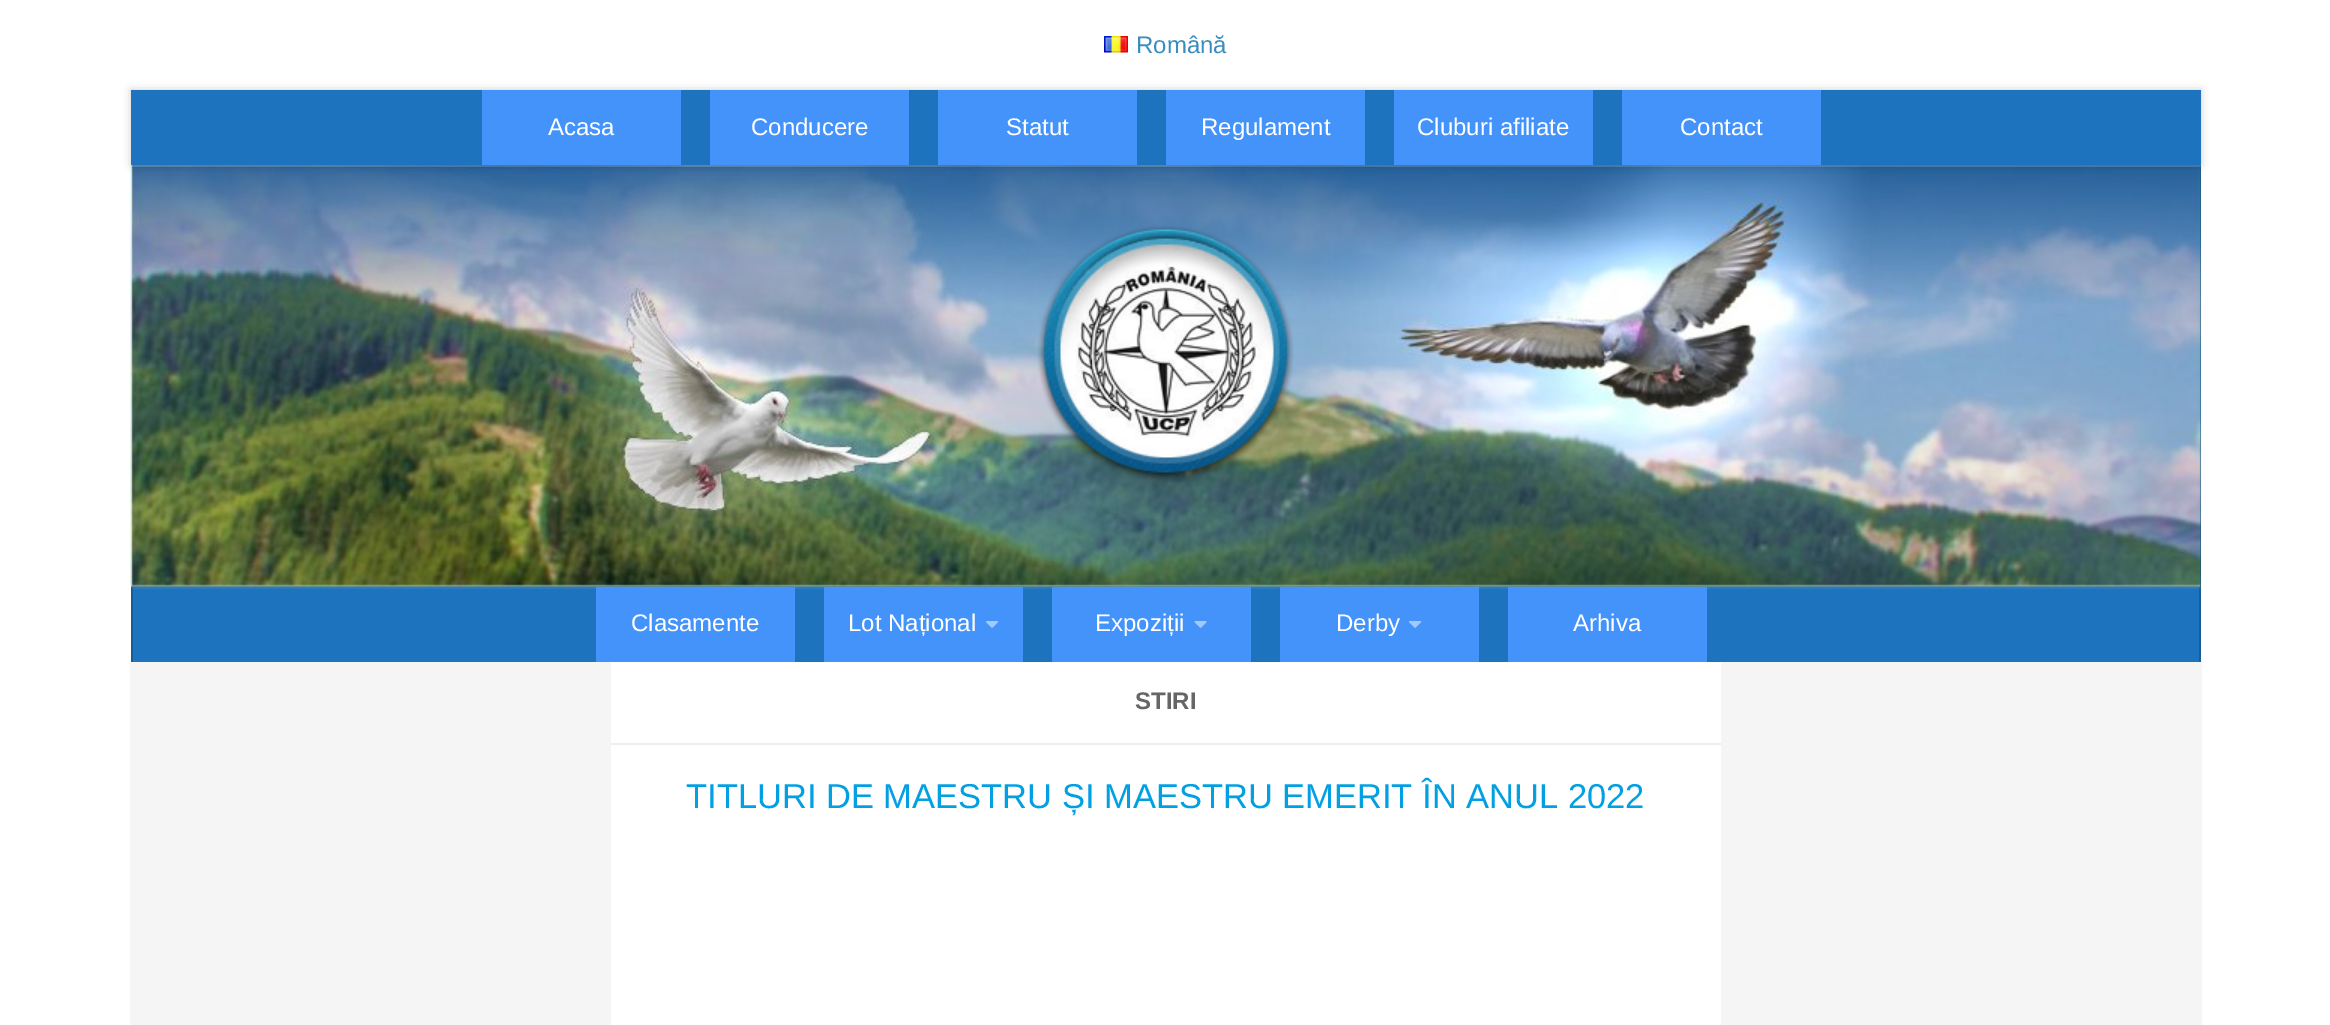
%!PS-Adobe-3.0
%%BoundingBox: 0 0 2330 1025
%%LanguageLevel: 3
%%Pages: 1
%%EndComments
%%BeginProlog
/m { moveto } bind def
/l { lineto } bind def
/h { closepath } bind def
/f { fill } bind def
/fn { [ exch dup neg 0 0 3 -1 roll 0 0 ] selectfont } def
/tx { moveto show } def
/bx { rectfill } def
/al { dup .setfillconstantalpha .setstrokeconstantalpha } def
/rr { 5 dict begin { /r /h /w /y /x } { exch def } forall
  x r add y moveto x w add y 2 copy h add r arct x w add y h add x 1 index r arct
  x y h add x y r arct x y 2 copy exch w add exch r arct closepath end } def
/sh { 12 dict begin { /a /b /q /h /w /y /x } { exch def } forall gsave /was 0 def
  9 -2 -9 { dup b mul 4 div /e exch def 1 sub .425 mul 2.718 exch exp 1 add a .99 .min exch div /now exch def
    1 1 now sub 1 was sub div sub al /was now def
    w h .min e 2 mul add 0 gt { x e sub y e sub w e 2 mul add h e 2 mul add
      q e add b .6 mul add w h .min 2 div e add .min 0 .max rr fill } if } for grestore end } def
/im { 5 dict begin { /h /w /y /x /name } { exch def } forall
  gsave x y translate w h scale
  w h 8 [w 0 0 h 0 0] name (r) file false 3 colorimage grestore end } def
%%EndProlog
%%BeginSetup
<< /PageSize [2330 1025] /PageUsesTransparency true >> setpagedevice
%%EndSetup
%%Page: 1 1
0 .pushpdf14devicefilter
0 1025 translate 1 -1 scale
4 setmiterlimit
1 setgray
0 0 2330 1025 bx
0.035 0.318 0.478 setrgbcolor
131 165 2070 422 bx
(image0.raw) 1104 36 24 17 im
/LiberationSans-Regular 24 fn
0.231 0.553 0.741 setrgbcolor
(Română) 1136 53 tx
(image2.raw) 130 165 2071 422 im
0.15 al
1 setgray
131 165 m 131 167 l 2201 167 l 2201 92 l 2200 92 l 2200 165 l h f
1 al
0 setgray
131 90 2070 75 0 4 0.2 sh
0.118 0.451 0.745 setrgbcolor
131 90 2070 75 bx
0.263 0.576 0.984 setrgbcolor
482 90 199 75 bx
1 setgray
(Acasa) 548 135 tx
0.263 0.576 0.984 setrgbcolor
710 90 199 75 bx
1 setgray
(Conducere) 751 135 tx
0.263 0.576 0.984 setrgbcolor
938 90 199 75 bx
1 setgray
(Statut) 1006 135 tx
0.263 0.576 0.984 setrgbcolor
1166 90 199 75 bx
1 setgray
(Regulament) 1201 135 tx
0.263 0.576 0.984 setrgbcolor
1394 90 199 75 bx
1 setgray
(Cluburi afiliate) 1417 135 tx
0.263 0.576 0.984 setrgbcolor
1622 90 199 75 bx
1 setgray
(Contact) 1680 135 tx
(image1.raw) 1037 226 257 256 im
0 setgray
131 663 2070 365 0 1 0.1 sh
0.2 al
131 585 m 131 586 l 2200 586 l 2200 660 l 2201 660 l 2201 585 l h f
1 al
0.118 0.451 0.745 setrgbcolor
133 587 2066 75 bx
0.094 0.361 0.596 setrgbcolor
2199 587 2 75 bx
131 587 2 75 bx
0.05 al
1 setgray
131 587 2070 2 bx
1 al
0.263 0.576 0.984 setrgbcolor
596 587 199 75 bx
1 setgray
(Clasamente) 631 631 tx
0.263 0.576 0.984 setrgbcolor
824 587 199 75 bx
1 setgray
(Lot Național) 848 631 tx
(image3.raw) 986 621 13 7 im
0.263 0.576 0.984 setrgbcolor
1052 587 199 75 bx
1 setgray
(Expoziții) 1095 631 tx
(image4.raw) 1194 621 13 7 im
0.263 0.576 0.984 setrgbcolor
1280 587 199 75 bx
1 setgray
(Derby) 1336 631 tx
(image3.raw) 1409 621 13 7 im
0.263 0.576 0.984 setrgbcolor
1508 587 199 75 bx
1 setgray
(Arhiva) 1573 631 tx
0.961 setgray
131 662 2070 363 bx
1 setgray
611 662 1110 363 bx
0.933 setgray
611 743 1110 2 bx
/LiberationSans-Bold 24 fn
0.4 setgray
(STIRI) 1135 709 tx
/LiberationSans-Regular 34.5 fn
0.004 0.627 0.886 setrgbcolor
(TITLURI DE MAESTRU ȘI MAESTRU EMERIT ÎN ANUL 2022) 686 808 tx
.poppdf14devicefilter showpage
%%EOF
